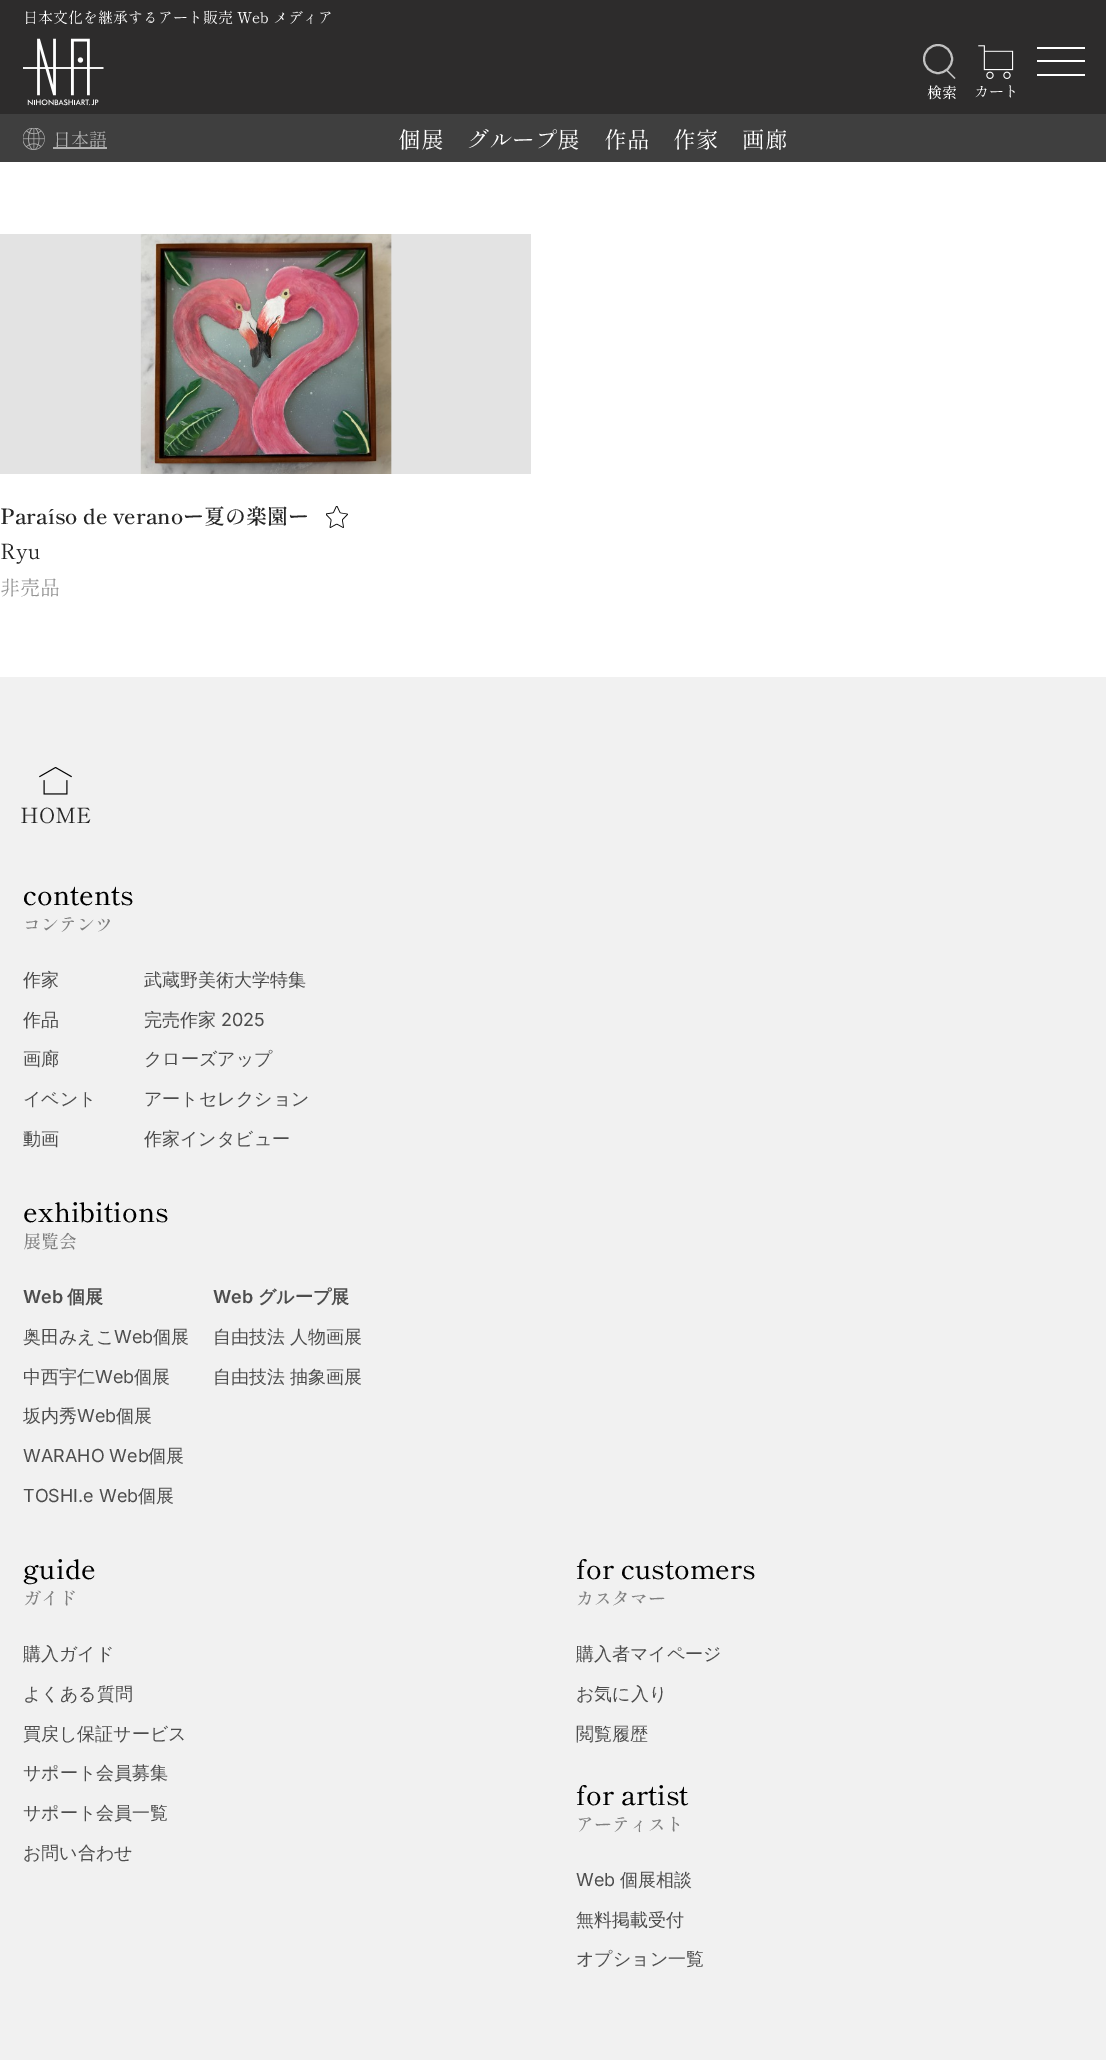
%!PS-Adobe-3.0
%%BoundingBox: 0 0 1106 2060
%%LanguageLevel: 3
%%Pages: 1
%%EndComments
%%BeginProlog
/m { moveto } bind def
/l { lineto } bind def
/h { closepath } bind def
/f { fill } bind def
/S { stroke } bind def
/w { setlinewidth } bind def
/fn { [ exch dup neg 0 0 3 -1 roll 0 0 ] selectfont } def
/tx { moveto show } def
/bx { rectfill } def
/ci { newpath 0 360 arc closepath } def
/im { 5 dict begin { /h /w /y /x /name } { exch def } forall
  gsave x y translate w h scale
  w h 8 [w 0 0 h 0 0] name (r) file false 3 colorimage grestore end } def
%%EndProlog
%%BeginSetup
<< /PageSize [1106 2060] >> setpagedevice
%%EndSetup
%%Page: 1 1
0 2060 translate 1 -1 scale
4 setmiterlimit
1 setgray
0 0 1106 2060 bx
0.176 0.173 0.173 setrgbcolor
0 0 1106 114 bx
/ShipporiMinchoB1-Regular 15 fn
1 setgray
(日本文化を継承するアート販売 Web メディア) 23 23 tx
(image0.raw) 23 38 81 68 im
1037 47 48 2 bx
1037 60 48 2 bx
1037 74 48 2 bx
0.757 setgray
2 w
938 59 14 ci S
947 69.5 m 955.5 78 l 954.5 79 l 946 70.5 l h f
/ShipporiMinchoB1-Medium 15 fn
1 setgray
(検索) 927 98 tx
(image1.raw) 978 45 36 34 im
/ShipporiMinchoB1-Regular 15 fn
(カート) 974 97 tx
0.247 setgray
0 114 1106 48 bx
(image2.raw) 23 128 22 22 im
0.694 setgray
53 147 54 2 bx
/ShipporiMinchoB1-Regular 18 fn
(日本語) 53 146 tx
/ShipporiMinchoB1-Regular 22.5 fn
1 setgray
(個展) 398 148 tx
(グループ展) 467 148 tx
(作品) 604 148 tx
(作家) 673 148 tx
(画廊) 742 148 tx
0.89 setgray
0 234 531 240 bx
(image3.raw) 140 234 252 240 im
/ShipporiMinchoB1-SemiBold 21 fn
0.149 setgray
(Paraíso de veranoー夏の楽園ー) 0 524 tx
(image4.raw) 326 506 22 22 im
/ShipporiMinchoB1-Regular 21 fn
(Ryu) 0 559 tx
/ShipporiMinchoB1-Regular 20 fn
0.584 setgray
(非売品) 0 595 tx
0.945 setgray
0 677 1106 1383 bx
(image5.raw) 39 767 33 28 im
/ShipporiMinchoB1-Regular 21 fn
0.149 setgray
(HOME) 20 823 tx
/ShipporiMinchoB1-Medium 27 fn
0 setgray
(contents) 23 905 tx
/ShipporiMinchoB1-Medium 18 fn
0.502 setgray
(コンテンツ) 23 931 tx
/WenQuanYiZenHei-Medium 18 fn
0.302 setgray
(作家) 23 986 tx
(作品) 23 1026 tx
(画廊) 23 1065 tx
(イベント) 23 1105 tx
(動画) 23 1145 tx
(武蔵野美術大学特集) 144 986 tx
(完売作家) 144 1026 tx
/Inter-Regular 18 fn
(2025) 221 1026 tx
/WenQuanYiZenHei-Medium 18 fn
(クローズアップ) 144 1065 tx
(アートセレクション) 144 1105 tx
(作家インタビュー) 144 1145 tx
/ShipporiMinchoB1-Medium 27 fn
0 setgray
(exhibitions) 23 1222 tx
/ShipporiMinchoB1-Medium 18 fn
0.502 setgray
(展覧会) 23 1248 tx
/Inter-SemiBold 18 fn
0.302 setgray
(Web) 23 1303 tx
/WenQuanYiZenHei-Bold 18 fn
(個展) 67 1303 tx
/WenQuanYiZenHei-Medium 18 fn
(奥田みえこ) 23 1343 tx
/Inter-Regular 18 fn
(Web) 114 1343 tx
/WenQuanYiZenHei-Medium 18 fn
(個展) 153 1343 tx
(中西宇仁) 23 1383 tx
/Inter-Regular 18 fn
(Web) 95 1383 tx
/WenQuanYiZenHei-Medium 18 fn
(個展) 134 1383 tx
(坂内秀) 23 1422 tx
/Inter-Regular 18 fn
(Web) 77 1422 tx
/WenQuanYiZenHei-Medium 18 fn
(個展) 116 1422 tx
/Inter-Regular 18 fn
(WARAHO Web) 23 1462 tx
/WenQuanYiZenHei-Medium 18 fn
(個展) 148 1462 tx
/Inter-Regular 18 fn
(TOSHI.e Web) 23 1502 tx
/WenQuanYiZenHei-Medium 18 fn
(個展) 138 1502 tx
/Inter-SemiBold 18 fn
(Web) 213 1303 tx
/WenQuanYiZenHei-Bold 18 fn
(グループ展) 258 1303 tx
/WenQuanYiZenHei-Medium 18 fn
(自由技法 人物画展) 213 1343 tx
(自由技法 抽象画展) 213 1383 tx
/ShipporiMinchoB1-Medium 27 fn
0 setgray
(guide) 23 1579 tx
/ShipporiMinchoB1-Medium 18 fn
0.502 setgray
(ガイド) 23 1605 tx
/WenQuanYiZenHei-Medium 18 fn
0.302 setgray
(購入ガイド) 23 1660 tx
(よくある質問) 23 1700 tx
(買戻し保証サービス) 23 1740 tx
(サポート会員募集) 23 1779 tx
(サポート会員一覧) 23 1819 tx
(お問い合わせ) 23 1859 tx
/ShipporiMinchoB1-Medium 27 fn
0 setgray
(for customers) 576 1579 tx
/ShipporiMinchoB1-Medium 18 fn
0.502 setgray
(カスタマー) 576 1605 tx
/WenQuanYiZenHei-Medium 18 fn
0.302 setgray
(購入者マイページ) 576 1660 tx
(お気に入り) 576 1700 tx
(閲覧履歴) 576 1740 tx
/ShipporiMinchoB1-Medium 27 fn
0 setgray
(for artist) 576 1805 tx
/ShipporiMinchoB1-Medium 18 fn
0.502 setgray
(アーティスト) 576 1831 tx
/Inter-Regular 18 fn
0.302 setgray
(Web) 576 1886 tx
/WenQuanYiZenHei-Medium 18 fn
(個展相談) 620 1886 tx
(無料掲載受付) 576 1926 tx
(オプション一覧) 576 1965 tx
showpage
%%EOF
